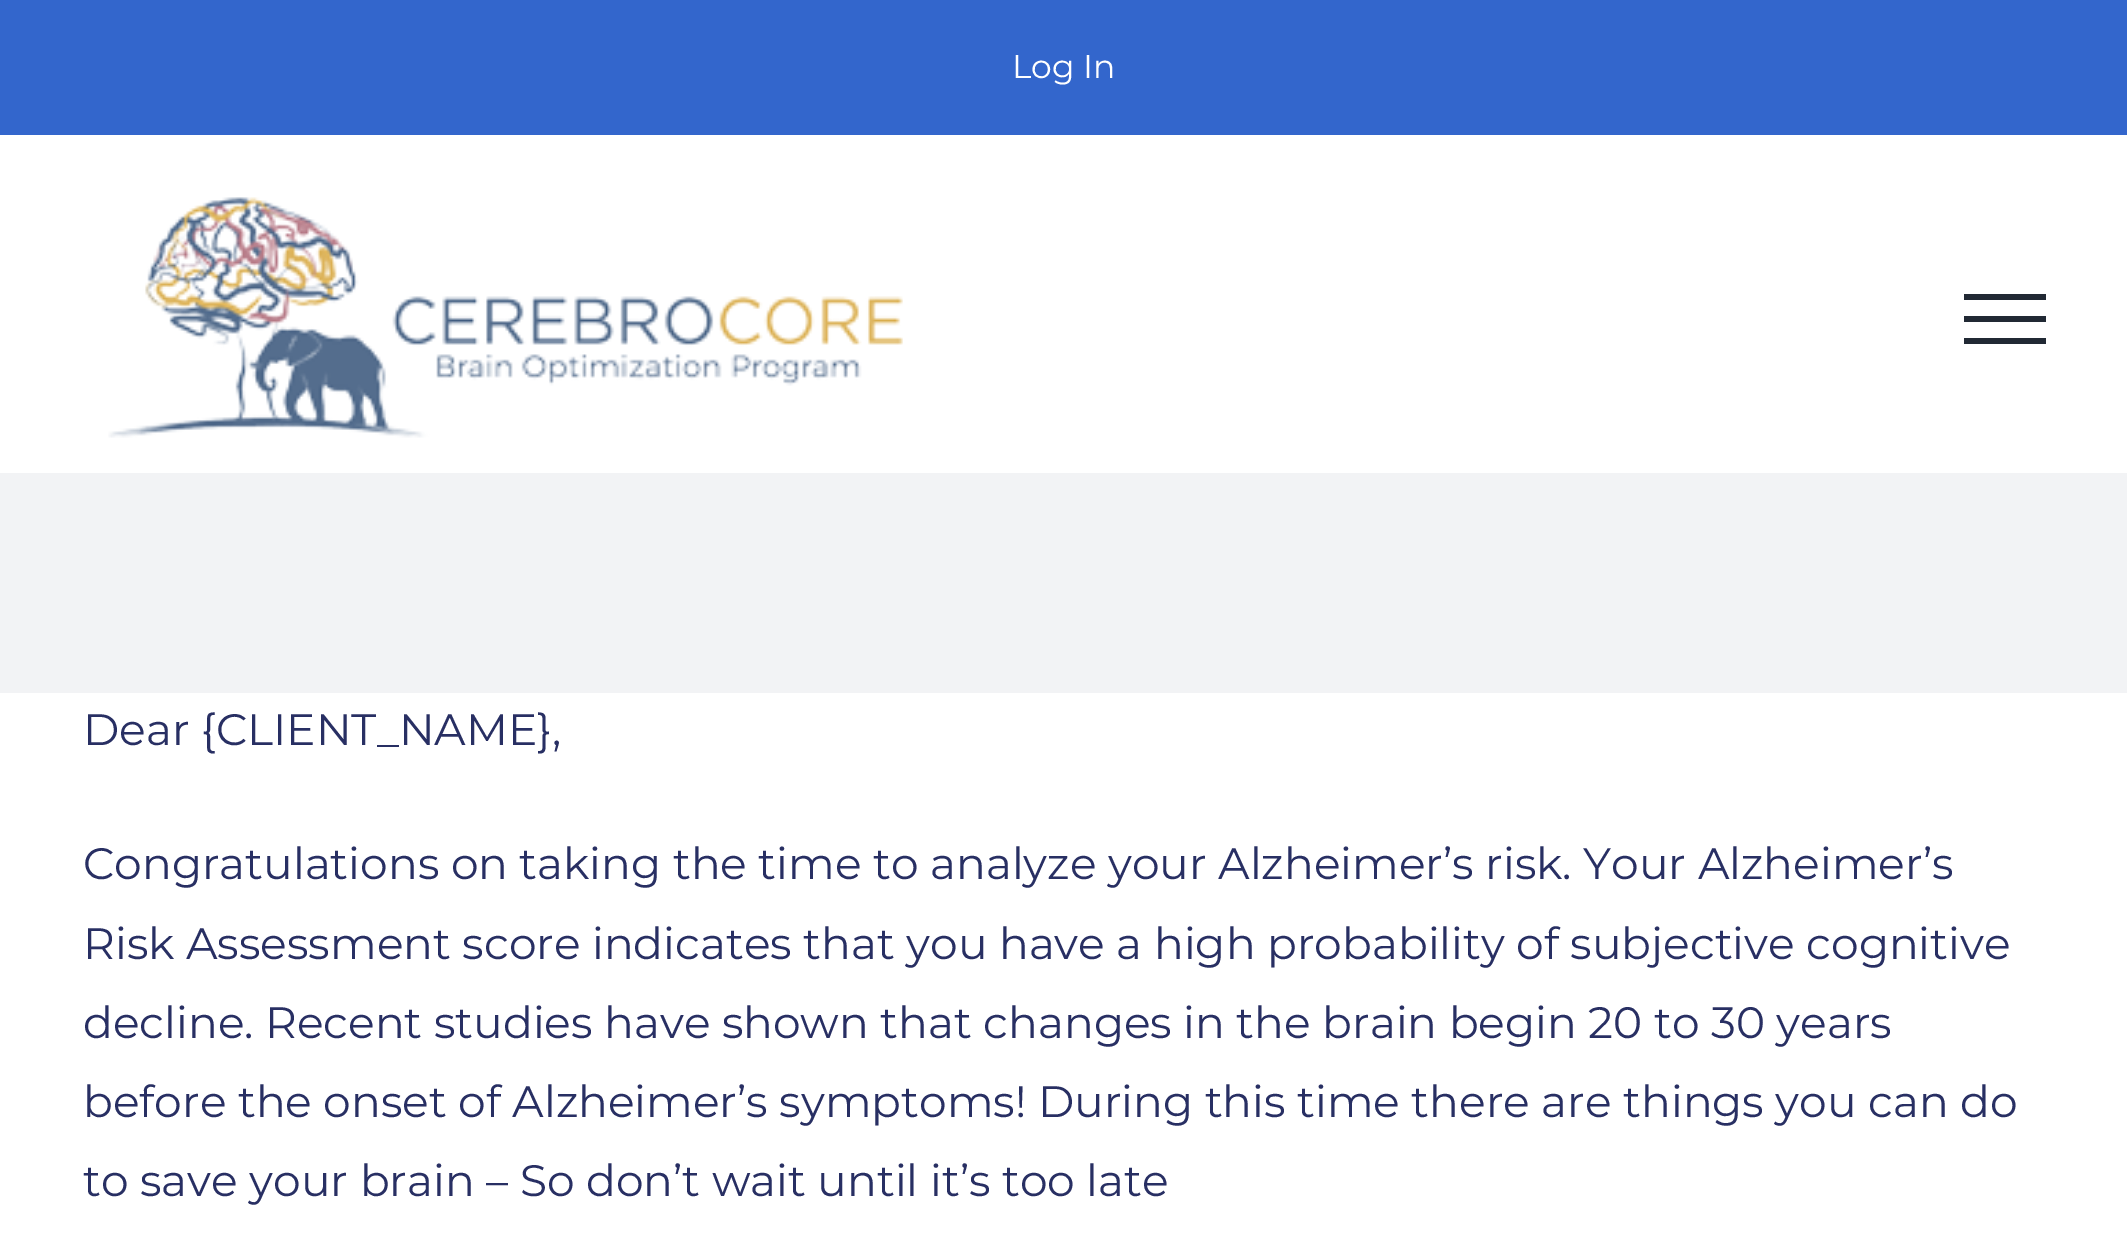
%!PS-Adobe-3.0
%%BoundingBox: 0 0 2127 1254
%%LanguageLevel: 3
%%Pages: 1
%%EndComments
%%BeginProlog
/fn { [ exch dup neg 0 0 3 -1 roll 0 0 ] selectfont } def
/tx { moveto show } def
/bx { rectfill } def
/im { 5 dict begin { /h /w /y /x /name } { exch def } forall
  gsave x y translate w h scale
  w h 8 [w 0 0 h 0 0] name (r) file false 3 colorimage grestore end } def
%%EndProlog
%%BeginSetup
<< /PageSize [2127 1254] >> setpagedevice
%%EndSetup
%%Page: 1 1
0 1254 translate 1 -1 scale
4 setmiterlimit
1 setgray
0 0 2127 1254 bx
0.2 0.4 0.8 setrgbcolor
0 0 2127 135 bx
/Montserrat-Regular 33 fn
1 setgray
(Log In) 1012 78 tx
(image0.raw) 108 197 795 241 im
0.129 0.161 0.204 setrgbcolor
1964 294 82 6 bx
1964 316 82 6 bx
1964 338 82 6 bx
0.949 0.953 0.961 setrgbcolor
0 473 2127 220 bx
/Montserrat-Regular 44 fn
0.157 0.184 0.388 setrgbcolor
(Dear {CLIENT_NAME},) 83 745 tx
(Congratulations on taking the time to analyze your Alzheimer’s risk. Your Alzheimer’s) 83 879 tx
(Risk Assessment score indicates that you have a high probability of subjective cognitive) 83 959 tx
(decline. Recent studies have shown that changes in the brain begin 20 to 30 years) 83 1038 tx
(before the onset of Alzheimer’s symptoms! During this time there are things you can do) 83 1117 tx
(to save your brain – So don’t wait until it’s too late) 83 1196 tx
showpage
%%EOF
